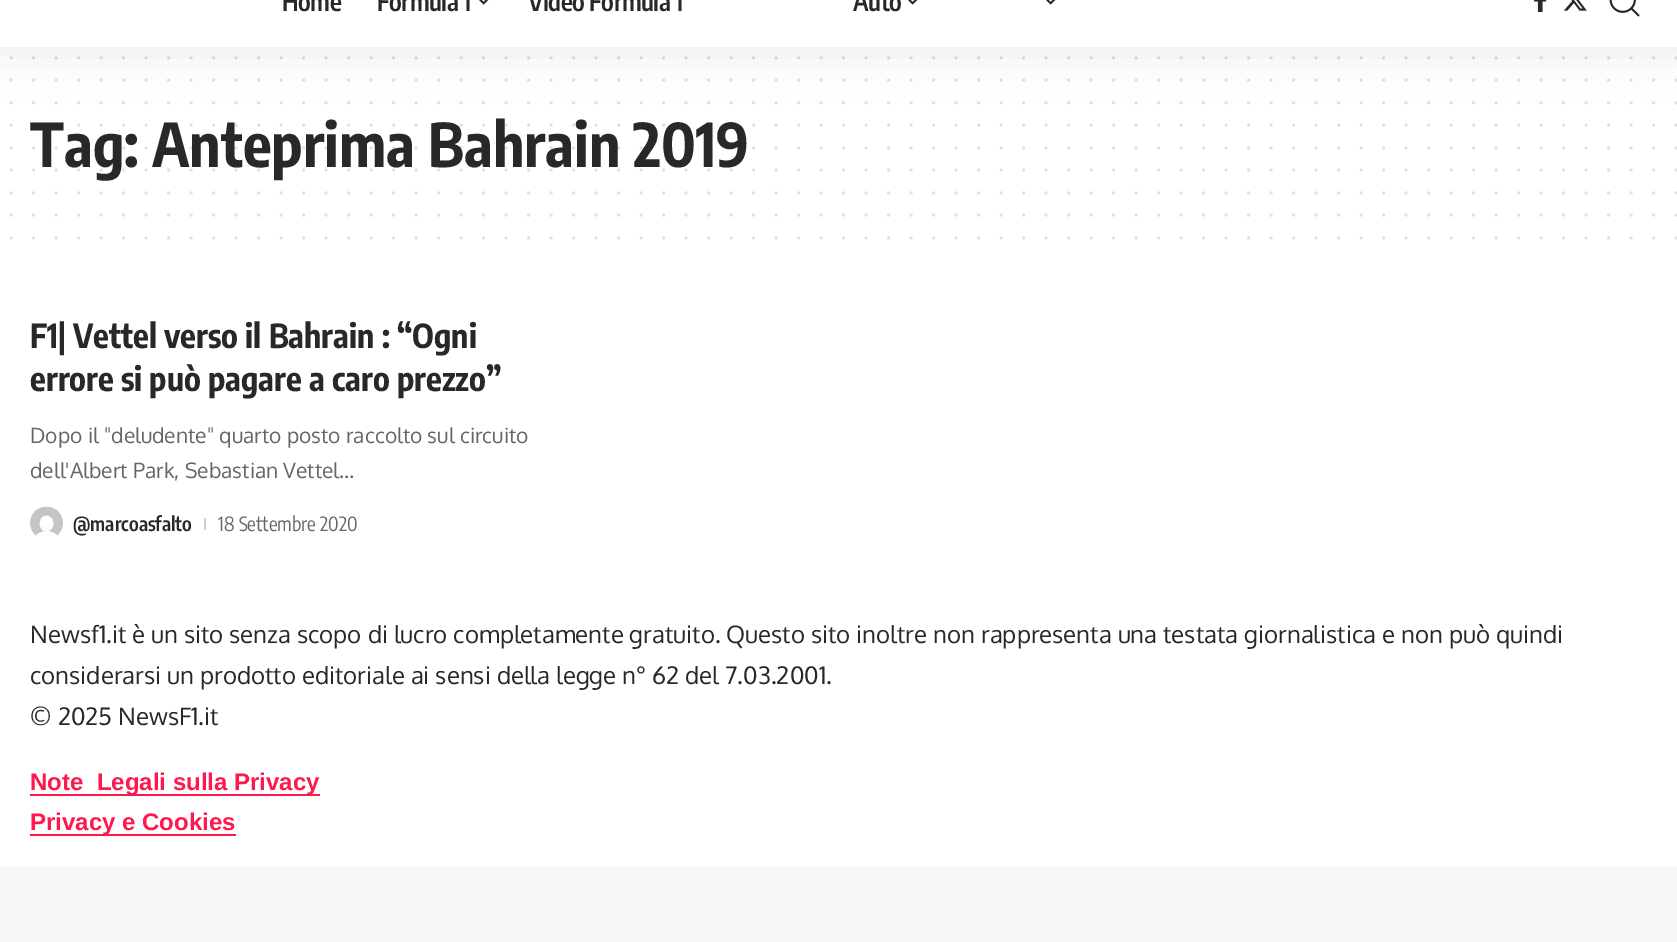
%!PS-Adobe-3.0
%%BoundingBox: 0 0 1677 942
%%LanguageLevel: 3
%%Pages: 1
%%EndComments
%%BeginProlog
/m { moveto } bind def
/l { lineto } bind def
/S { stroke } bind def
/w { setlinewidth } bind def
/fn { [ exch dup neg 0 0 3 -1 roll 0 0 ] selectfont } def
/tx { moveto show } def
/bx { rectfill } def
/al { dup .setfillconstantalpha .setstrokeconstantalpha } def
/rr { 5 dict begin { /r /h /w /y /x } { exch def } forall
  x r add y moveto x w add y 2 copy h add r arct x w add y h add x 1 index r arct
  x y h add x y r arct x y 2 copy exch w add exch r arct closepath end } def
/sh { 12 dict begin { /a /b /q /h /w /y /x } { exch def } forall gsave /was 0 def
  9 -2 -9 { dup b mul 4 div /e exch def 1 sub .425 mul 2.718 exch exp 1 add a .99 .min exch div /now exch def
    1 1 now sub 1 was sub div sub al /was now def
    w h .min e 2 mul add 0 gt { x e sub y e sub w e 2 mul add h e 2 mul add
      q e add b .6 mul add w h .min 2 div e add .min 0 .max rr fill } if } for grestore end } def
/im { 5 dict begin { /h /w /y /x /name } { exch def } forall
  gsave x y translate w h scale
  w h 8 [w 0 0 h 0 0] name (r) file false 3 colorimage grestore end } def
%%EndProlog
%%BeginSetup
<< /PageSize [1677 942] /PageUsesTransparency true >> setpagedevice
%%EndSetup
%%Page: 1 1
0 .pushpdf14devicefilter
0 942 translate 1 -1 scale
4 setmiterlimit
1 setgray
0 0 1677 942 bx
0.875 setgray
3 w
1 setlinecap
[0 22.5] 0 setdash
11.2 57.8 m 1676.6 57.8 l S
11.2 80.2 m 1676.6 80.2 l S
11.2 102.8 m 1676.6 102.8 l S
0 setgray
0 -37 1677 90 0 22.5 0.07 sh
1 setgray
0 0 1677 47 bx
/EncodeSansCondensed-SemiBold 25.5 fn
0.157 setgray
282 11 m -0.5 0 (Home) ashow
377 11 m -0.5 0 (Formula 1) ashow
(image0.raw) 479 0 10 5 im
528 11 m -0.5 0 (Video Formula 1) ashow
853 11 m -0.5 0 (Auto) ashow
(image0.raw) 908 0 10 5 im
(image0.raw) 1046 0 10 5 im
(image1.raw) 1534 0 13 12 im
(image2.raw) 1563 0 24 11 im
(image3.raw) 1609 0 31 17 im
/EncodeSansCondensed-Bold 60 fn
(Tag: Anteprima Bahrain 2019) 30 167 tx
0.15 al
11.2 125.2 m 1676.6 125.2 l S
11.2 147.8 m 1676.6 147.8 l S
11.2 170.2 m 1676.6 170.2 l S
1 al
0.875 setgray
11.2 192.8 m 1676.6 192.8 l S
11.2 215.2 m 1676.6 215.2 l S
11.2 237.8 m 1676.6 237.8 l S
/EncodeSansCondensed-Bold 33 fn
0.157 setgray
(F1| Vettel verso il Bahrain : “Ogni) 30 348 tx
(errore si può pagare a caro prezzo”) 30 391 tx
/Oxygen-Regular 21 fn
0.4 setgray
(Dopo il "deludente" quarto posto raccolto sul circuito) 30 443 tx
(dell'Albert Park, Sebastian Vettel…) 30 478 tx
(image4.raw) 30 506 33 30 im
/EncodeSansCondensed-SemiBold 19.5 fn
0.157 setgray
(@marcoasfalto) 73 531 tx
0.82 setgray
204 518 2 12 bx
/EncodeSansCondensed-Regular 19.5 fn
0.4 setgray
(18 Settembre 2020) 218 531 tx
/Oxygen-Regular 24 fn
0.157 setgray
(Newsf1.it è un sito senza scopo di lucro completamente gratuito. Questo sito inoltre non rappresenta una testata giornalistica e non può quindi) 30 643 tx
(considerarsi un prodotto editoriale ai sensi della legge n° 62 del 7.03.2001.) 30 684 tx
(© 2025 NewsF1.it) 30 725 tx
1 0.094 0.306 setrgbcolor
30 794 290 2 bx
/LiberationSans-Bold 24 fn
(Note  Legali sulla Privacy) 30 790 tx
30 834 206 2 bx
(Privacy e Cookies) 30 830 tx
0.969 setgray
0 867 1677 75 bx
.poppdf14devicefilter showpage
%%EOF
